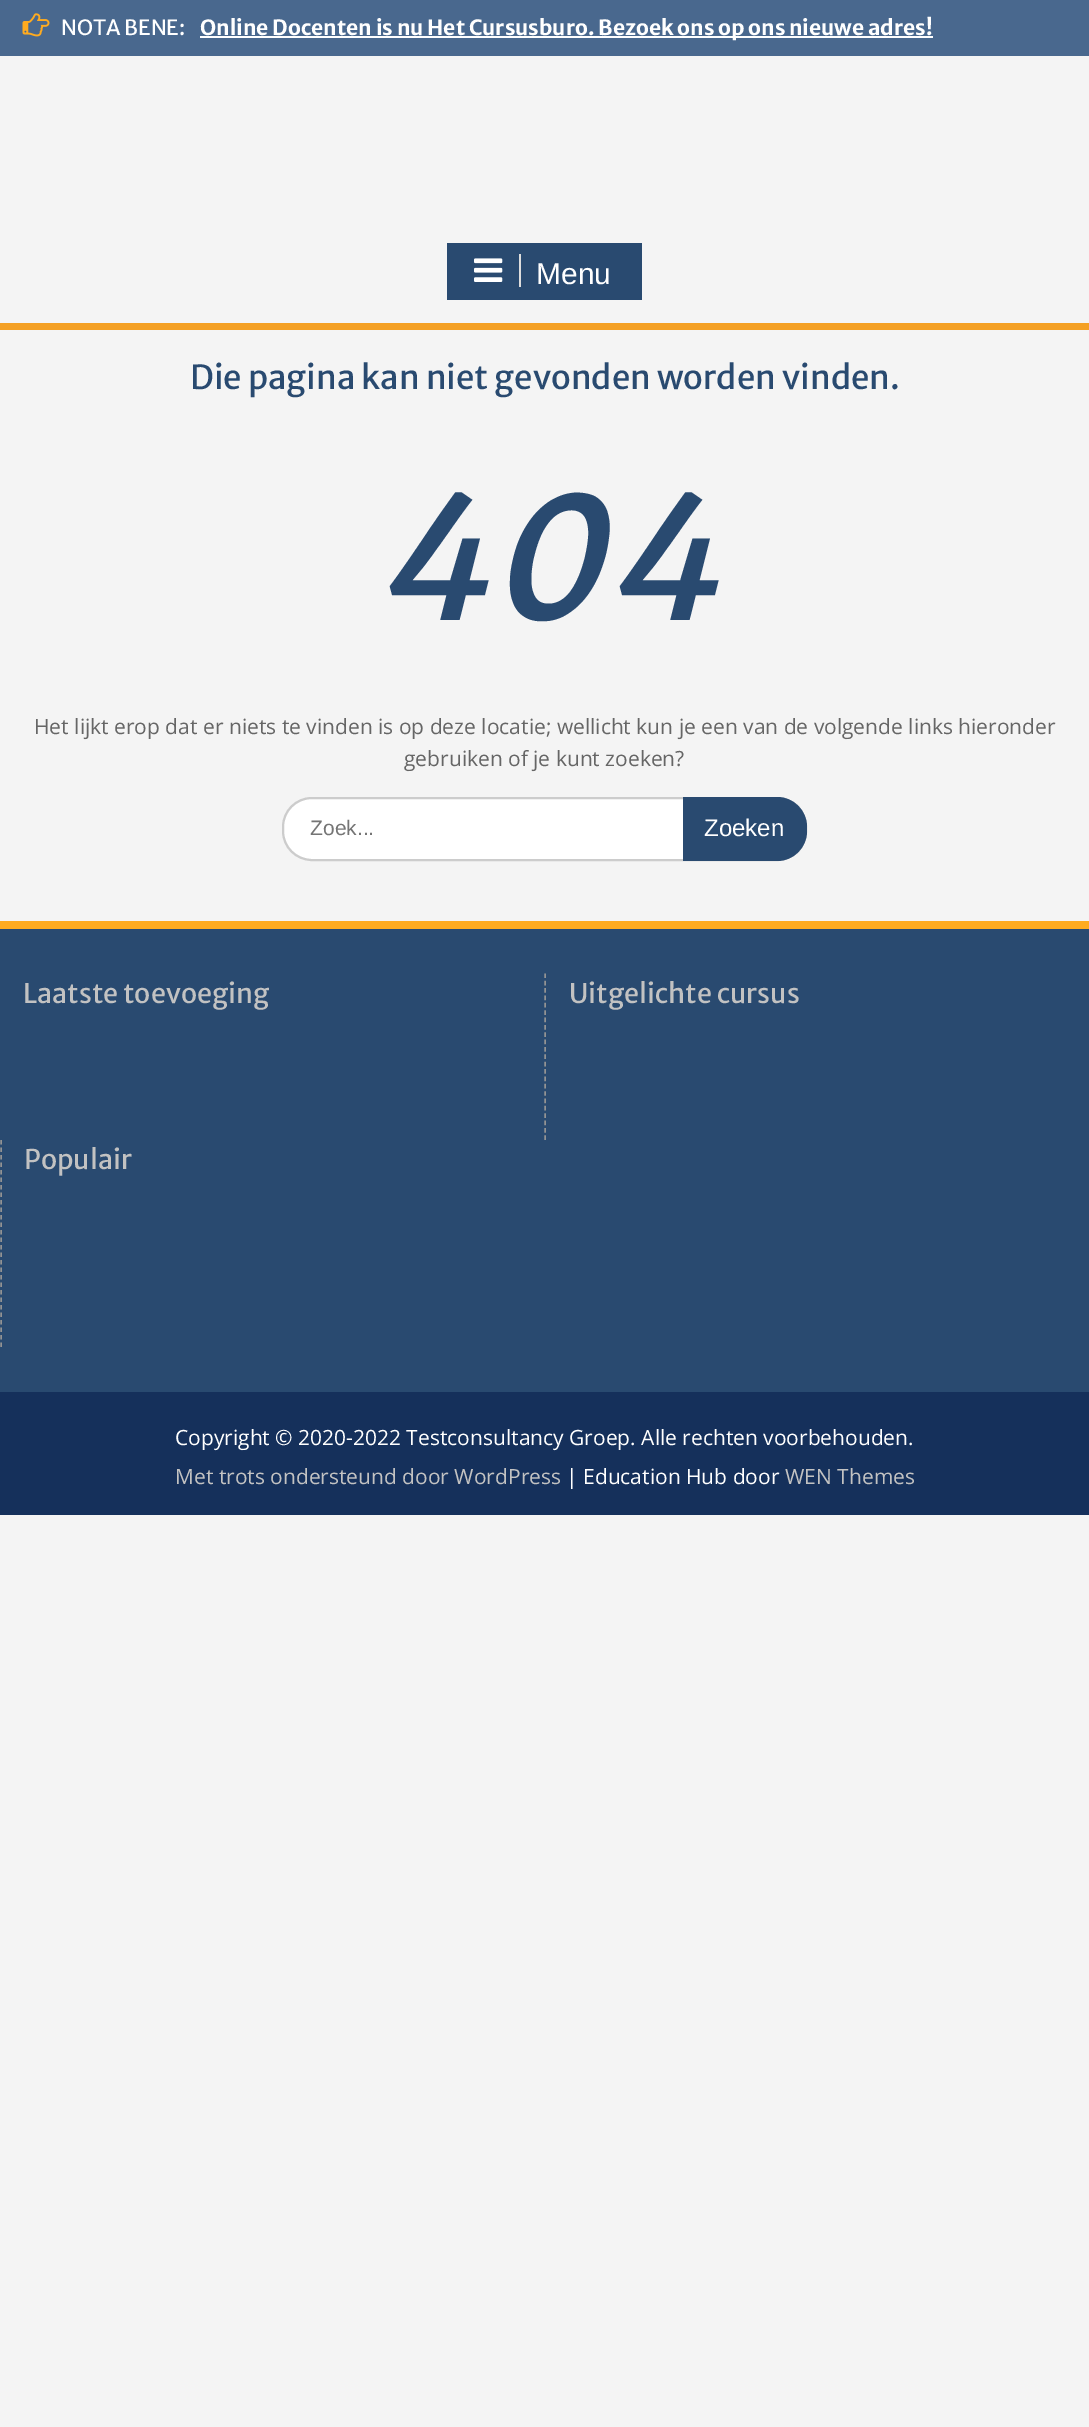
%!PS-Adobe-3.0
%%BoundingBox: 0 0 1089 2427
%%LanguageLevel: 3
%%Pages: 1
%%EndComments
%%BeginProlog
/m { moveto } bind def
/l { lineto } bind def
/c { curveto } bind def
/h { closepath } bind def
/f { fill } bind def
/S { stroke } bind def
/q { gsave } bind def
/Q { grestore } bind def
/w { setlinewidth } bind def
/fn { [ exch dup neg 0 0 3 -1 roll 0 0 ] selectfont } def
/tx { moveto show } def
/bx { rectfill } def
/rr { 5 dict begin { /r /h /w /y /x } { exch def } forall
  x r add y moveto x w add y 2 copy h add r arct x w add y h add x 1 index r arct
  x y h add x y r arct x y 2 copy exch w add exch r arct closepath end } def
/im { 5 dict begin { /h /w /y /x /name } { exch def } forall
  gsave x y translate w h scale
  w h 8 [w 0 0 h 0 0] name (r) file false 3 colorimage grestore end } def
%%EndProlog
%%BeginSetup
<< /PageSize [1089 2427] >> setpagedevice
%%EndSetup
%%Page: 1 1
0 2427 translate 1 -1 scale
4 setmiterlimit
0.957 setgray
0 0 1089 2427 bx
0.286 0.408 0.557 setrgbcolor
0 0 1089 56 bx
(image0.raw) 22 13 28 24 im
/MerriweatherSans-Regular 21 fn
1 setgray
(NOTA BENE:) 61 35 tx
200 36 733 2 bx
/MerriweatherSans-Bold 21 fn
(Online Docenten is nu Het Cursusburo. Bezoek ons op ons nieuwe adres!) 200 35 tx
0.957 0.627 0.141 setrgbcolor
0 323 1089 7 bx
0.161 0.29 0.439 setrgbcolor
447 243 195 57 bx
0.867 setgray
519 254 2 33 bx
(image1.raw) 474 258 29 24 im
/LiberationSans-Regular 30 fn
1 setgray
(Menu) 536 284 tx
/MerriweatherSans-Regular 33 fn
0.161 0.29 0.439 setrgbcolor
(Die pagina kan niet gevonden worden vinden.) 190 389 tx
/MerriweatherSans-Italic 169.5 fn
(404) 372 620 tx
/OpenSans-Regular 21 fn
0.4 setgray
(Het lijkt erop dat er niets te vinden is op deze locatie; wellicht kun je een van de volgende links hieronder) 34 734 tx
(gebruiken of je kunt zoeken?) 404 766 tx
1 setgray
283 798 523 62 29 rr q f Q
0.8 setgray
2 w
S
/LiberationSans-Regular 21 fn
0.459 setgray
(Zoek...) 310 835 tx
0.161 0.29 0.439 setrgbcolor
683 797 m 777 797 l 793.5 797 807 810.5 807 827 c 807 831 l 807 847.5 793.5 861 777 861 c 683 861 l h f
/LiberationSans-Regular 24 fn
1 setgray
(Zoeken) 704 836 tx
0.161 0.29 0.439 setrgbcolor
0 929 1089 463 bx
1 0.671 0.122 setrgbcolor
0 921 1089 8 bx
/MerriweatherSans-Regular 27 fn
0.761 setgray
(Laatste toevoeging) 23 1003 tx
0.576 setgray
1.5 w
[4.5 2.86] 0 setdash
545 973.5 m 545 1140 l S
0.761 setgray
(Uitgelichte cursus) 569 1003 tx
0.576 setgray
[4.5 3] 0 setdash
1 1140 m 1 1347 l S
0.761 setgray
(Populair) 24 1169 tx
0.082 0.188 0.357 setrgbcolor
0 1392 1089 123 bx
/OpenSans-Regular 21 fn
1 setgray
(Copyright © 2020-2022 Testconsultancy Groep. Alle rechten voorbehouden.) 175 1445 tx
0.761 setgray
(Met trots ondersteund door WordPress) 175 1484 tx
1 setgray
(| Education Hub door) 566 1484 tx
0.761 setgray
(WEN Themes) 785 1484 tx
showpage
%%EOF
